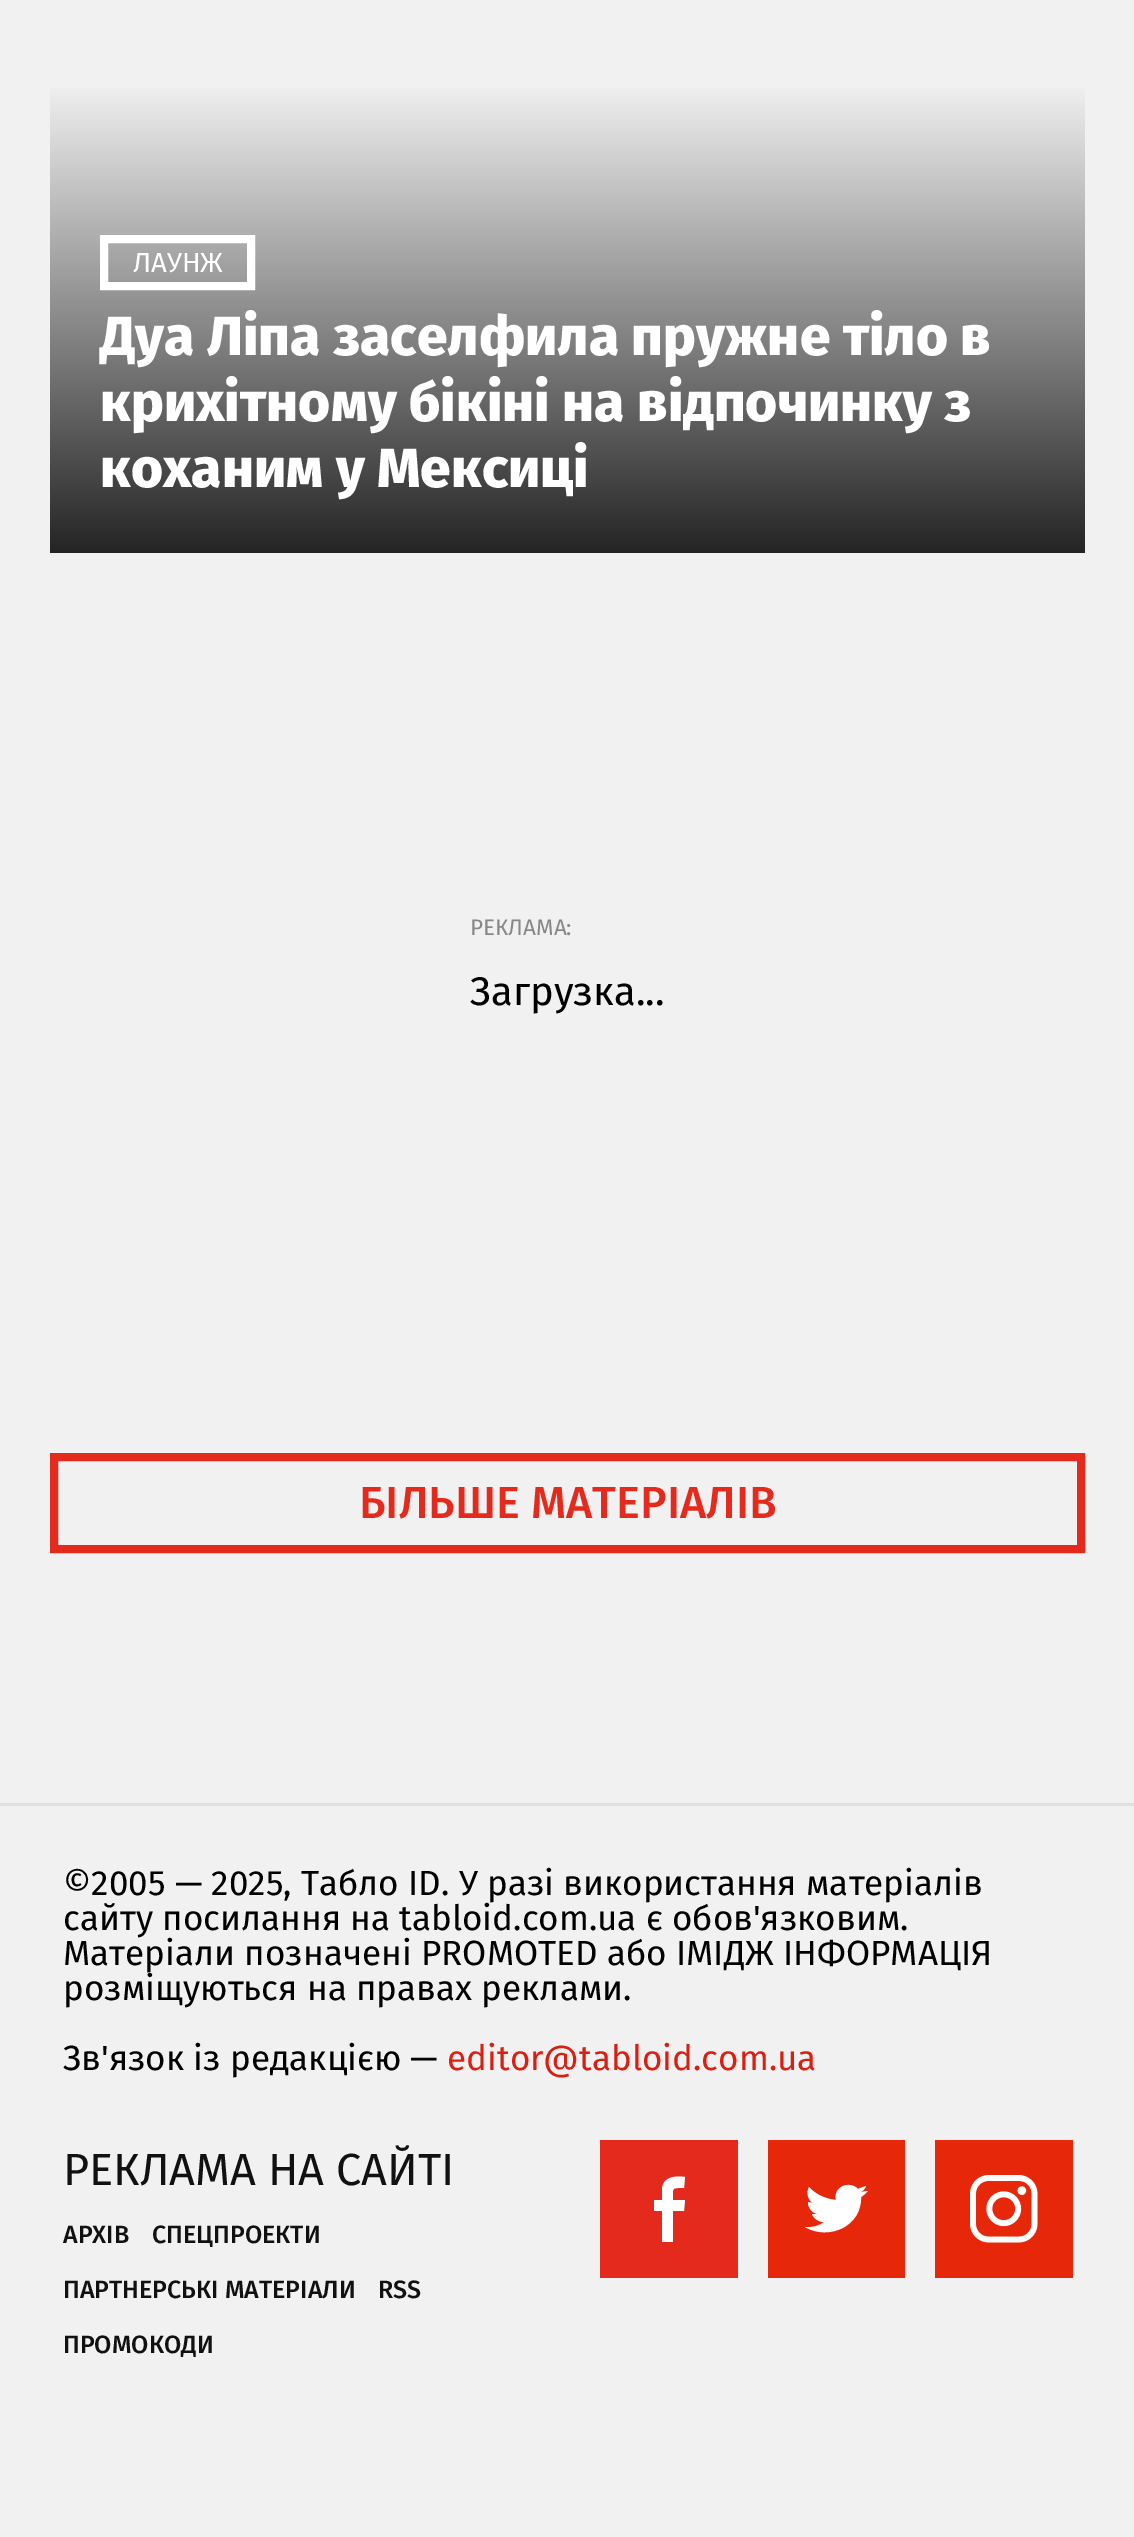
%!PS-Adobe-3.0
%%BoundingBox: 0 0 1134 2537
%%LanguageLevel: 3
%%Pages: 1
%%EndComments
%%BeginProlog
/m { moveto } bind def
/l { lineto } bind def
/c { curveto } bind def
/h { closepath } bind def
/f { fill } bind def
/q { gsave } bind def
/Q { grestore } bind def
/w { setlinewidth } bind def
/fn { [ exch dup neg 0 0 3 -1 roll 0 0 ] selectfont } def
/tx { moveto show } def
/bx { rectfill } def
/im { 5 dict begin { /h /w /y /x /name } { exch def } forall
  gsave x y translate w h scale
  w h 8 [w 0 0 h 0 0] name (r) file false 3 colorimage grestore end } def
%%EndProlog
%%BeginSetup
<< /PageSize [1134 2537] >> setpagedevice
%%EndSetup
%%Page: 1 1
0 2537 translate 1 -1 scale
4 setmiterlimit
0.945 0.945 0.949 setrgbcolor
0 0 1134 2537 bx
q 50 88 m 1085 88 l 1085 553 l 50 553 l h clip newpath
<< /ShadingType 2 /ColorSpace /DeviceRGB /Coords [568 85 568 553] /Extend [true true] /Function << /FunctionType 2 /Domain [0 1] /C0 [0.941 0.941 0.945] /C1 [0.141 0.141 0.141] /N 1 >> >> shfill Q
1 setgray
8 w
104 239 147 47 rectstroke
/FiraSans-Regular 27.5 fn
(ЛАУНЖ) 133 272 tx
/FiraSans-ExtraBold 55 fn
(Дуа Ліпа заселфила пружне тіло в) 100 355 tx
(крихітному бікіні на відпочинку з) 100 421 tx
(коханим у Мексиці) 100 487 tx
/FiraSans-Regular 22.5 fn
0.533 setgray
(РЕКЛАМА:) 470 935 tx
/FiraSans-Regular 40 fn
0 setgray
(Загрузка...) 470 1005 tx
0.894 0.165 0.114 setrgbcolor
54 1457 1027 92 rectstroke
/FiraSans-Medium 45 fn
(БІЛЬШЕ МАТЕРІАЛІВ) 359 1518 tx
0.878 setgray
0 1803 1134 3 bx
/FiraSans-Regular 35 fn
0 setgray
(©2005 — 2025, Табло ID. У разі використання матеріалів) 63 1895 tx
(сайту посилання на tabloid.com.ua є обов'язковим.) 63 1930 tx
(Матеріали позначені PROMOTED або ІМІДЖ ІНФОРМАЦІЯ) 63 1965 tx
(розміщуються на правах реклами.) 63 2000 tx
(Зв'язок із редакцією —) 63 2070 tx
0.851 0.122 0.071 setrgbcolor
(editor@tabloid.com.ua) 447 2070 tx
/FiraSans-Regular 45 fn
0.067 setgray
(РЕКЛАМА НА САЙТІ) 63 2185 tx
/FiraSans-Medium 25 fn
(АРХІВ) 63 2243 tx
(СПЕЦПРОЕКТИ) 152 2243 tx
(ПАРТНЕРСЬКІ МАТЕРІАЛИ) 63 2298 tx
(RSS) 378 2298 tx
(ПРОМОКОДИ) 63 2353 tx
0.894 0.165 0.114 setrgbcolor
600 2140 138 138 bx
1 setgray
662 2242 m 662 2211 l 654 2211 l 654 2200 l 662 2200 l 662 2188 l 664 2176 676 2176 685 2177 c 684 2188 l 671 2188 673 2187 673 2200 c 685 2200 l 684 2211 l 673 2211 l 673 2242 l h f
0.906 0.153 0.039 setrgbcolor
768 2140 137 138 bx
1 setgray
868 2191 m 860 2192 l 863 2191 865 2189 866 2186 c 863 2187 860 2188 858 2189 c 849 2180 833 2187 836 2200 c 826 2199 816 2195 809 2187 c 806 2193 808 2200 813 2203 c 808 2202 l 808 2208 812 2213 818 2214 c 812 2214 l 814 2219 819 2222 824 2222 c 819 2226 812 2228 805 2227 c 829 2241 862 2226 861 2197 c 864 2195 866 2193 868 2191 c h eofill
(image0.raw) 935 2140 138 138 im
showpage
%%EOF
